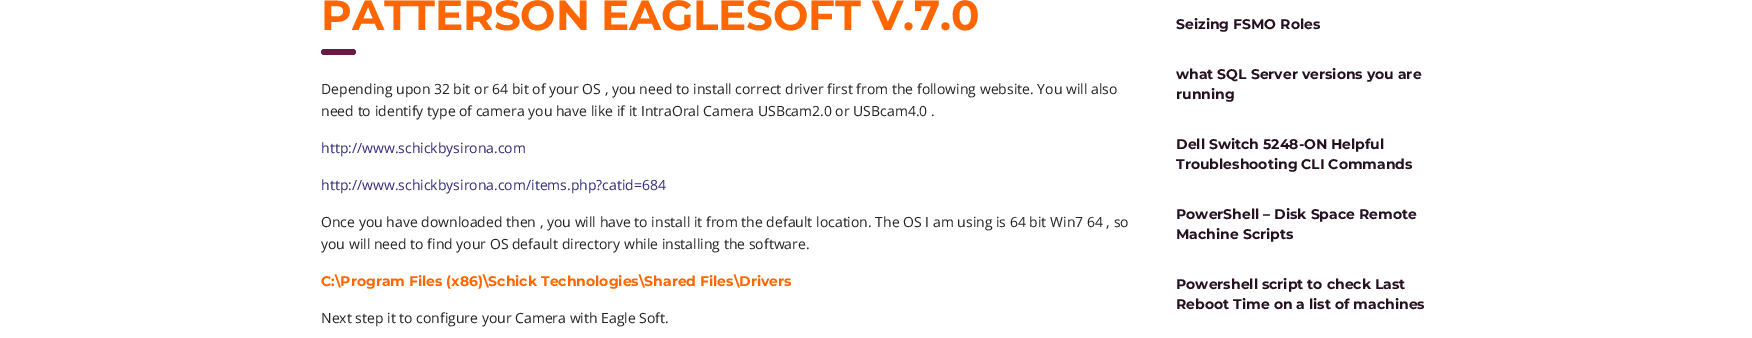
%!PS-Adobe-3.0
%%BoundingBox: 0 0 1752 338
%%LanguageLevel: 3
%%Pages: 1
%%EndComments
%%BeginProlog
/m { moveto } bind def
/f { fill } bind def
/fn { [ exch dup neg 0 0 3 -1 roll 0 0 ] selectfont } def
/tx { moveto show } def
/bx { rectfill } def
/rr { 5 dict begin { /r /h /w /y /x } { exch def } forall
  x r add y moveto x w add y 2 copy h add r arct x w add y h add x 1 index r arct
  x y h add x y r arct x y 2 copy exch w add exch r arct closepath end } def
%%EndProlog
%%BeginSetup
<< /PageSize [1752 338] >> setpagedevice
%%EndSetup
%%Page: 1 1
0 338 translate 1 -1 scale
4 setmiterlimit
1 setgray
0 0 1752 338 bx
/Montserrat-Bold 42 fn
1 0.4 0 setrgbcolor
321 30 m -0.2 0 (PATTERSON EAGLESOFT V.7.0) ashow
0.408 0.102 0.259 setrgbcolor
321 49 35 6 3 rr f
/OpenSans-Regular 14 fn
0.133 setgray
(Depending upon 32 bit or 64 bit of your OS , you need to install correct driver first from the following website. You will also) 321 94 tx
(need to identify type of camera you have like if it IntraOral Camera USBcam2.0 or USBcam4.0 .) 321 116 tx
0.188 0.173 0.475 setrgbcolor
(http://www.schickbysirona.com) 321 153 tx
(http://www.schickbysirona.com/items.php?catid=684) 321 190 tx
0.133 setgray
(Once you have downloaded then , you will have to install it from the default location. The OS I am using is 64 bit Win7 64 , so) 321 227 tx
(you will need to find your OS default directory while installing the software.) 321 249 tx
/Montserrat-Bold 14 fn
1 0.4 0 setrgbcolor
(C:\\Program Files \(x86\)\\Schick Technologies\\Shared Files\\Drivers) 321 286 tx
/OpenSans-Regular 14 fn
0.133 setgray
(Next step it to configure your Camera with Eagle Soft.) 321 323 tx
/Montserrat-Bold 14 fn
0.145 0.063 0.129 setrgbcolor
(Seizing FSMO Roles) 1176 29 tx
(what SQL Server versions you are) 1176 79 tx
(running) 1176 99 tx
(Dell Switch 5248-ON Helpful) 1176 149 tx
(Troubleshooting CLI Commands) 1176 169 tx
(PowerShell – Disk Space Remote) 1176 219 tx
(Machine Scripts) 1176 239 tx
(Powershell script to check Last) 1176 289 tx
(Reboot Time on a list of machines) 1176 309 tx
showpage
%%EOF
